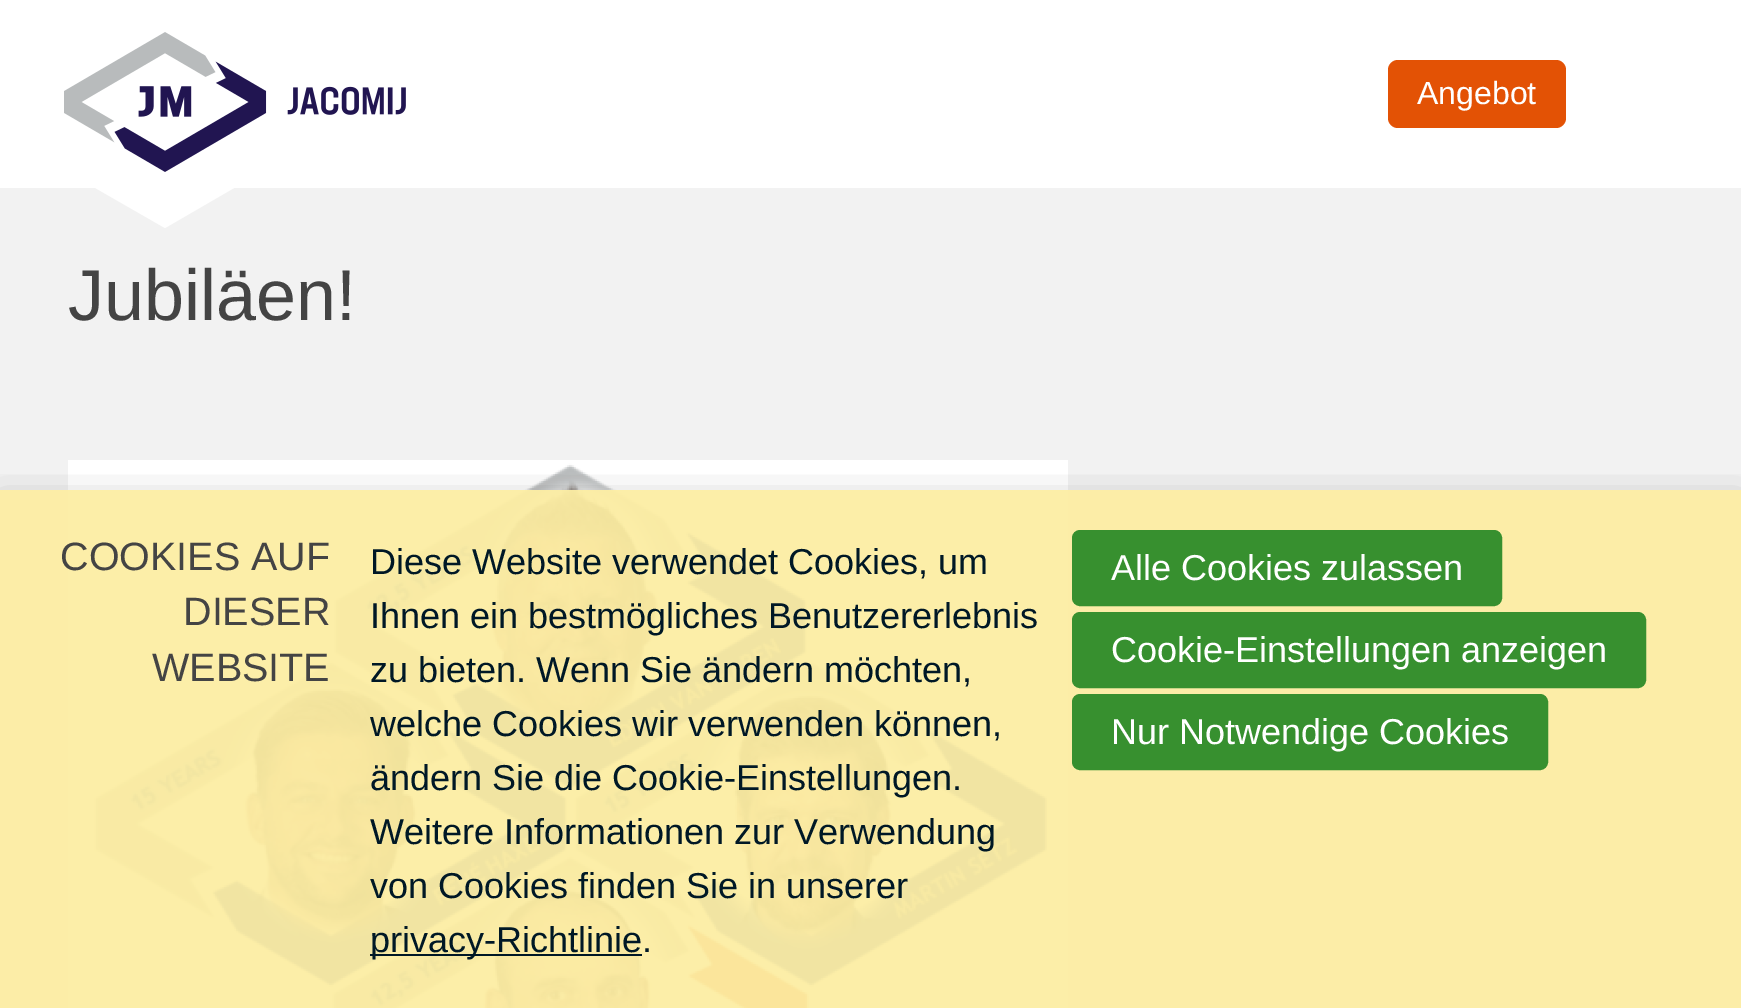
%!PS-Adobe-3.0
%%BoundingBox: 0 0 1741 1008
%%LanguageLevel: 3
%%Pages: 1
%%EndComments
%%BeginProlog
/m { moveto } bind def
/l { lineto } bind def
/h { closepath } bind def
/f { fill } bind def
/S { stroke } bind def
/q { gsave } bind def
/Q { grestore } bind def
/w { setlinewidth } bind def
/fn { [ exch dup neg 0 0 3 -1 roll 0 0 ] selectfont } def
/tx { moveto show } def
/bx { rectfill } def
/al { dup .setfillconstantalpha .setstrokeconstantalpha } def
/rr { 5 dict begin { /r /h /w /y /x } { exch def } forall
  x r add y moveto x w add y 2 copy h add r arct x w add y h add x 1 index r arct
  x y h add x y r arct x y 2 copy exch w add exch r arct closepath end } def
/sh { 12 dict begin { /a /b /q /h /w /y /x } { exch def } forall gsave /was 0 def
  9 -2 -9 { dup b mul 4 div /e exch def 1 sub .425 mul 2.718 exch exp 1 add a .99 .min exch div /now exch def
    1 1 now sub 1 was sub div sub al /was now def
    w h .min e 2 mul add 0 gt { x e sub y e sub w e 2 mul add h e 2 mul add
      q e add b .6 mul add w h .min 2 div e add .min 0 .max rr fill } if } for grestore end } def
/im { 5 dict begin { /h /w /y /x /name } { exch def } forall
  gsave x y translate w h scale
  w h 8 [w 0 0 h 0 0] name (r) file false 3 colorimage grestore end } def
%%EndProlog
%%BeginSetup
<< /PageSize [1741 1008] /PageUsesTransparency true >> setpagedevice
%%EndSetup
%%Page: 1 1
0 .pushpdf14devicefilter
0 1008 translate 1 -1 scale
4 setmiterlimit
0.949 setgray
0 0 1741 1008 bx
1 setgray
0 0 1741 188 bx
266 128 m 265 170 l 165 228 l 64 170 l 64 129 l 165 187 l h eofill
(image0.raw) 64 32 342 140 im
0.89 0.322 0.02 setrgbcolor
1388 60 178 68 10 rr f
/LiberationSans-Regular 32 fn
1 setgray
(Angebot) 1417 104 tx
0.988 0.929 0.655 setrgbcolor
0 490 1741 518 bx
/LiberationSans-Regular 72 fn
0.267 setgray
(Jubiläen!) 68 320 tx
(image1.raw) 68 460 1000 548 im
q
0 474 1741 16 rectclip
0 setgray
0 500 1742 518 0 20 0.2 sh
Q
/LiberationSans-Regular 39.5 fn
(COOKIES AUF) 60 570 tx
(DIESER) 183 625 tx
(WEBSITE) 152 681 tx
/LiberationSans-Regular 36 fn
0 0.094 0.149 setrgbcolor
(Diese Website verwendet Cookies, um) 370 574 tx
(Ihnen ein bestmögliches Benutzererlebnis) 370 628 tx
(zu bieten. Wenn Sie ändern möchten,) 370 682 tx
(welche Cookies wir verwenden können,) 370 736 tx
(ändern Sie die Cookie-Einstellungen.) 370 790 tx
(Weitere Informationen zur Verwendung) 370 844 tx
(von Cookies finden Sie in unserer) 370 898 tx
370 954 272 2 bx
(privacy-Richtlinie.) 370 952 tx
0.216 0.565 0.184 setrgbcolor
1073 531 428 74 7 rr q f Q
2 w
S
1 setgray
(Alle Cookies zulassen) 1111 580 tx
0.216 0.565 0.184 setrgbcolor
1073 613 572 74 7 rr q f Q
S
1 setgray
(Cookie-Einstellungen anzeigen) 1111 662 tx
0.216 0.565 0.184 setrgbcolor
1073 695 474 74 7 rr q f Q
S
1 setgray
(Nur Notwendige Cookies) 1111 744 tx
.poppdf14devicefilter showpage
%%EOF
